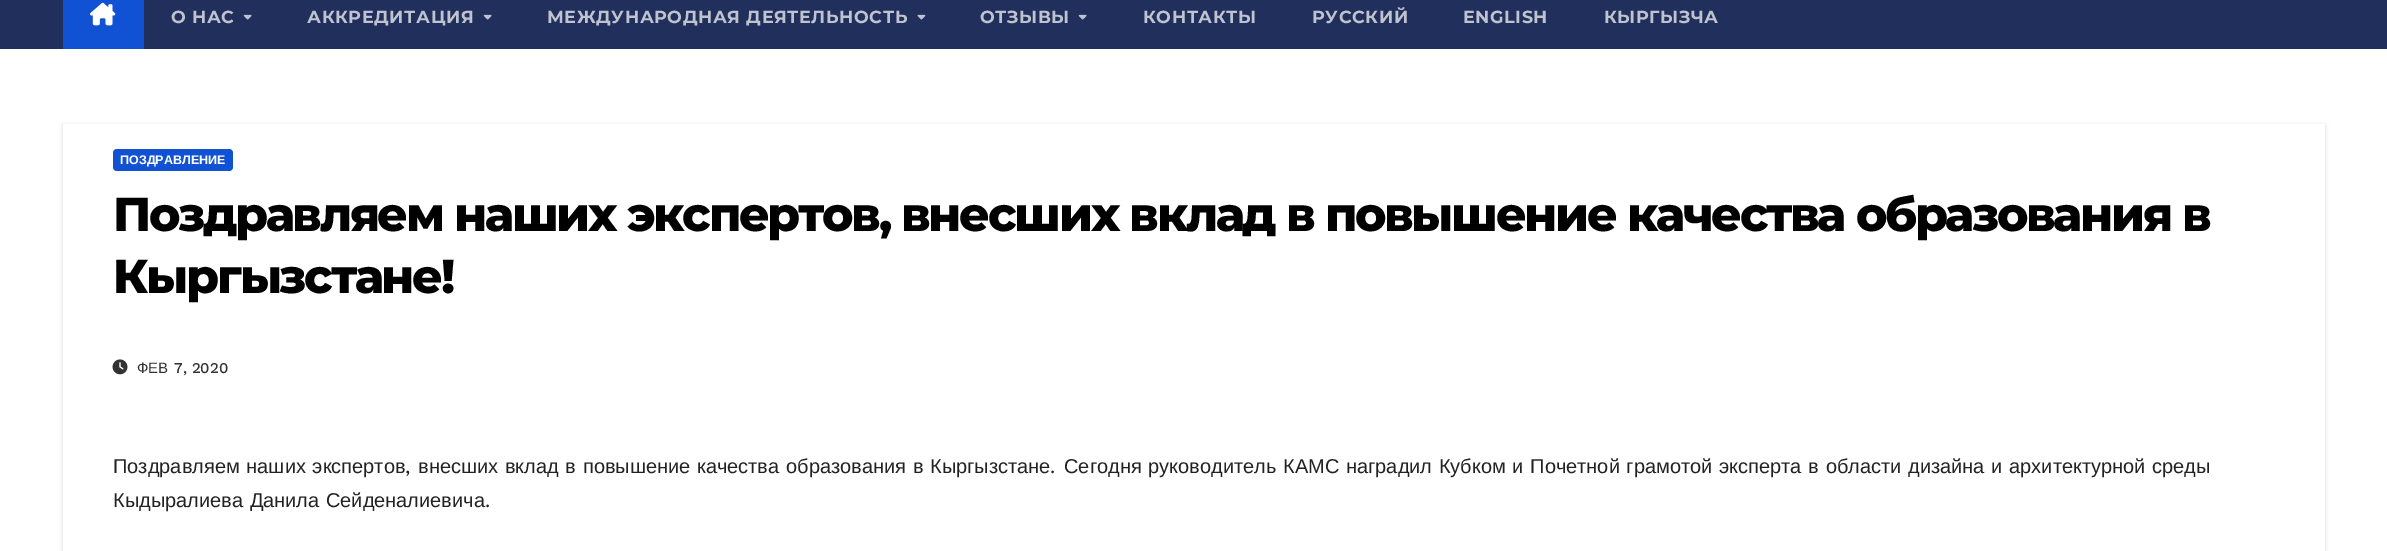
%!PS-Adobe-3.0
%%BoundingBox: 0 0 2387 551
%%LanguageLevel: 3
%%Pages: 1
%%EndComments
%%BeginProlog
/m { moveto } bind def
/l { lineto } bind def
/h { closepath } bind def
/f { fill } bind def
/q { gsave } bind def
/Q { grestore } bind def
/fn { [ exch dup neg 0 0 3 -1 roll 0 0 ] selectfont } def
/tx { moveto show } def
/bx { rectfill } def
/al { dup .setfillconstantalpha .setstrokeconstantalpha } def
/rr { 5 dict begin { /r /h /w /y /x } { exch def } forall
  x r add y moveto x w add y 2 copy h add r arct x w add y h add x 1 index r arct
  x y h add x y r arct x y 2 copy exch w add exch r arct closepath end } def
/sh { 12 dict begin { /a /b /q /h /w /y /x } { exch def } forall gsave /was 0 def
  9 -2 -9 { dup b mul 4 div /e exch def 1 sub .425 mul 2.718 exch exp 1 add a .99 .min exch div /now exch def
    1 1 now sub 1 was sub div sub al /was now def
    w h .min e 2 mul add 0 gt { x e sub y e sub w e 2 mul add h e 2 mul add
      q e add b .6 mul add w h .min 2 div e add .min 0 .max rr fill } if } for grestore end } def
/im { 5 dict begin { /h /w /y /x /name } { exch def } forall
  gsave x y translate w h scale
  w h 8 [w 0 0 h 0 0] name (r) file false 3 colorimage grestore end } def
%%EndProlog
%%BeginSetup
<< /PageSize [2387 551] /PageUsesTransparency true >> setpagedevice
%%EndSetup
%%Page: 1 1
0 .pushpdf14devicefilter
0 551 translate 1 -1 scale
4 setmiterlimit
1 setgray
0 0 2387 551 bx
0.125 0.184 0.357 setrgbcolor
0 0 2387 49 bx
0.067 0.318 0.827 setrgbcolor
63 0 81 49 bx
(image0.raw) 90 2 26 24 im
/Montserrat-Bold 17.5 fn
0.745 0.765 0.812 setrgbcolor
171 23 m 0.6 0 (О НАС) ashow
(image1.raw) 243 14 9 6 im
307 23 m 0.6 0 (АККРЕДИТАЦИЯ) ashow
(image1.raw) 483 14 9 6 im
547 23 m 0.6 0 (МЕЖДУНАРОДНАЯ ДЕЯТЕЛЬНОСТЬ) ashow
(image2.raw) 917 14 9 6 im
980 23 m 0.6 0 (ОТЗЫВЫ) ashow
(image1.raw) 1078 14 9 6 im
1143 23 m 0.6 0 (КОНТАКТЫ) ashow
1312 23 m 0.6 0 (РУССКИЙ) ashow
1463 23 m 0.6 0 (ENGLISH) ashow
1604 23 m 0.6 0 (КЫРГЫЗЧА) ashow
q
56 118 m 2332 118 l 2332 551 l 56 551 l h 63 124 m 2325 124 l 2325 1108 l 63 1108 l h eoclip newpath
0 setgray
63 125 2262 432 0 2 0.15 sh
Q
0.067 0.318 0.827 setrgbcolor
113 149 120 22 4 rr f
/LiberationSans-Bold 12.5 fn
1 setgray
(ПОЗДРАВЛЕНИЕ) 120 164 tx
/Montserrat-ExtraBold 47.5 fn
0 setgray
113 231 m -2.38 0 (Поздравляем наших экспертов, внесших вклад в повышение качества образования в) ashow
113 293 m -2.38 0 (Кыргызстане!) ashow
(image3.raw) 112 359 16 16 im
/LiberationSans-Regular 15 fn
0.2 setgray
(ФЕВ) 137 373 tx
/WorkSans-Medium 15 fn
(7, 2020) 174 373 tx
/LiberationSans-Regular 20 fn
0.133 setgray
113 473 m 1.2 0 32 (Поздравляем наших экспертов) widthshow
/WorkSans-Regular 20 fn
(,) 405 473 tx
/LiberationSans-Regular 20 fn
418 473 m 1.2 0 32 (внесших вклад в повышение качества образования в Кыргызстане) widthshow
/WorkSans-Regular 20 fn
(.) 1050 473 tx
/LiberationSans-Regular 20 fn
1064 473 m 1.2 0 32 (Сегодня руководитель КАМС наградил Кубком и Почетной грамотой эксперта в области дизайна и архитектурной среды) widthshow
113 507 m 1 0 32 (Кыдыралиева Данила Сейденалиевича) widthshow
/WorkSans-Regular 20 fn
(.) 485 507 tx
.poppdf14devicefilter showpage
%%EOF
